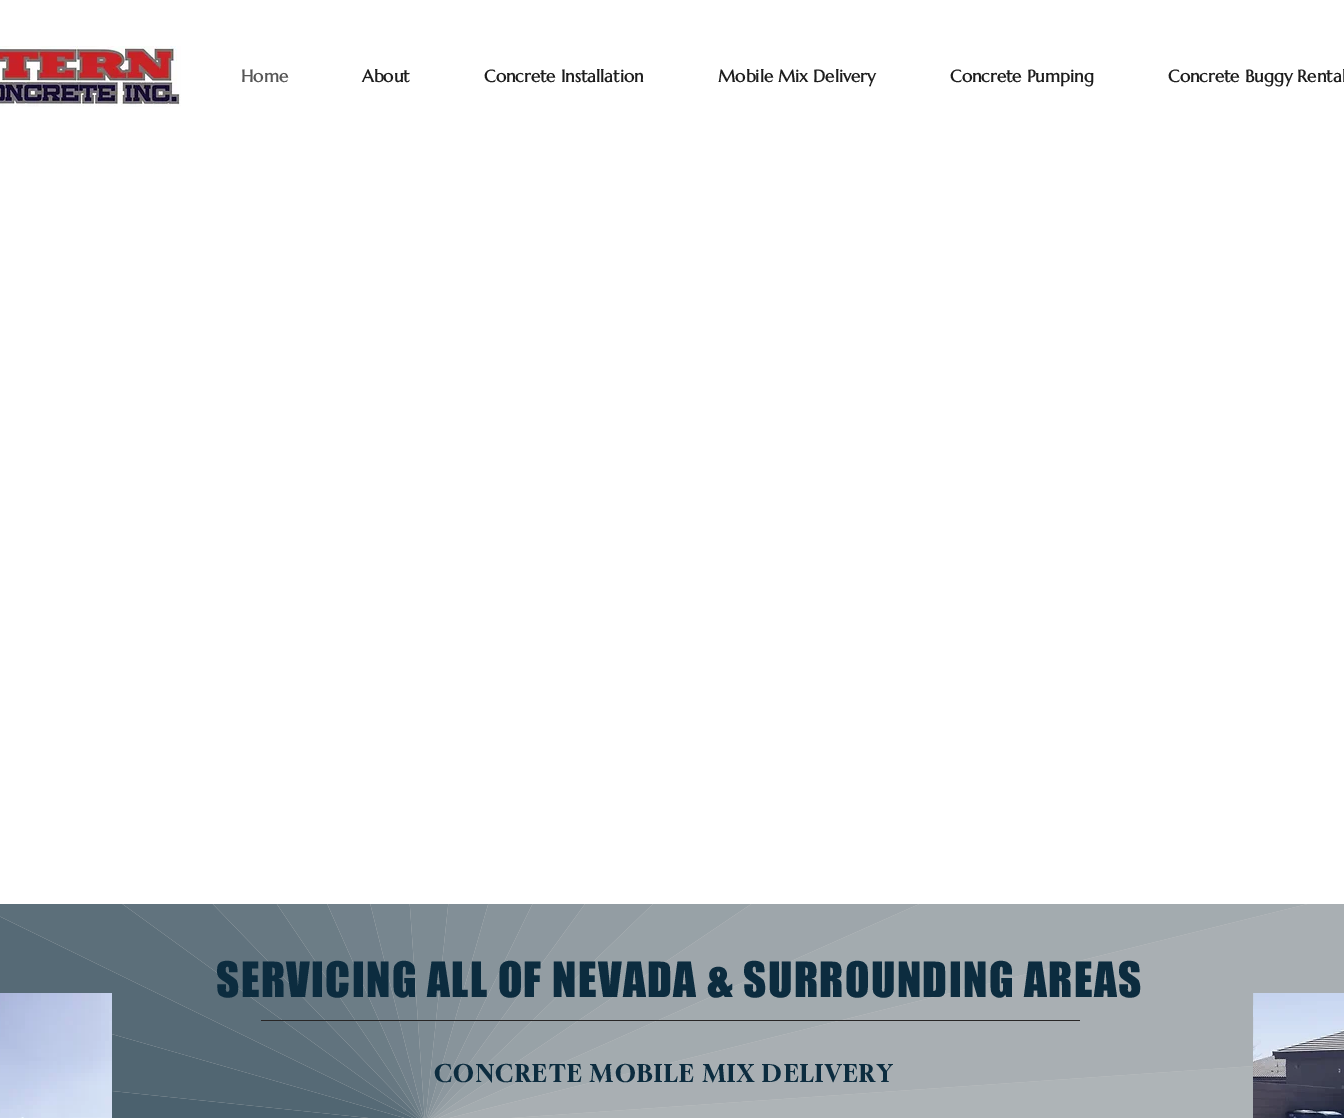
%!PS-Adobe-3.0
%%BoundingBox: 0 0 1344 1118
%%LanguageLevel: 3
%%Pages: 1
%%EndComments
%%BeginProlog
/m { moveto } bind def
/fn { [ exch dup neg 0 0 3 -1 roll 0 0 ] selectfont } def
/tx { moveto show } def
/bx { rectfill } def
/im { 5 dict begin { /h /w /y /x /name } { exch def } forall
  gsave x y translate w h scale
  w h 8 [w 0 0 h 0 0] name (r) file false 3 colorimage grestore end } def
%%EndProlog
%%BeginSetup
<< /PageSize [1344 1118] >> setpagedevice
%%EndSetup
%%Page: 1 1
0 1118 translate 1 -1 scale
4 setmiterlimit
1 setgray
0 0 1344 1118 bx
(image0.raw) 0 46 181 61 im
/Marcellus-Bold 17 fn
0.337 setgray
(Home) 241 82 tx
0.114 setgray
(About) 362 82 tx
(Concrete Installation) 484 82 tx
(Mobile Mix Delivery) 718 82 tx
(Concrete Pumping) 950 82 tx
(Concrete Buggy Rental) 1168 82 tx
(image1.raw) 0 904 1344 214 im
/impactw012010-Regular 45 fn
0.047 0.173 0.247 setrgbcolor
216 997 m 1.35 0 (SERVICING ALL OF NEVADA & SURROUNDING AREAS) ashow
(image2.raw) 0 993 112 125 im
0.157 0.149 0.149 setrgbcolor
261 1020 819 1 bx
(image3.raw) 1253 993 91 125 im
/Gloock-Bold 23 fn
0.047 0.173 0.247 setrgbcolor
434 1082 m 2.3 0 (CONCRETE MOBILE MIX DELIVERY) ashow
showpage
%%EOF
